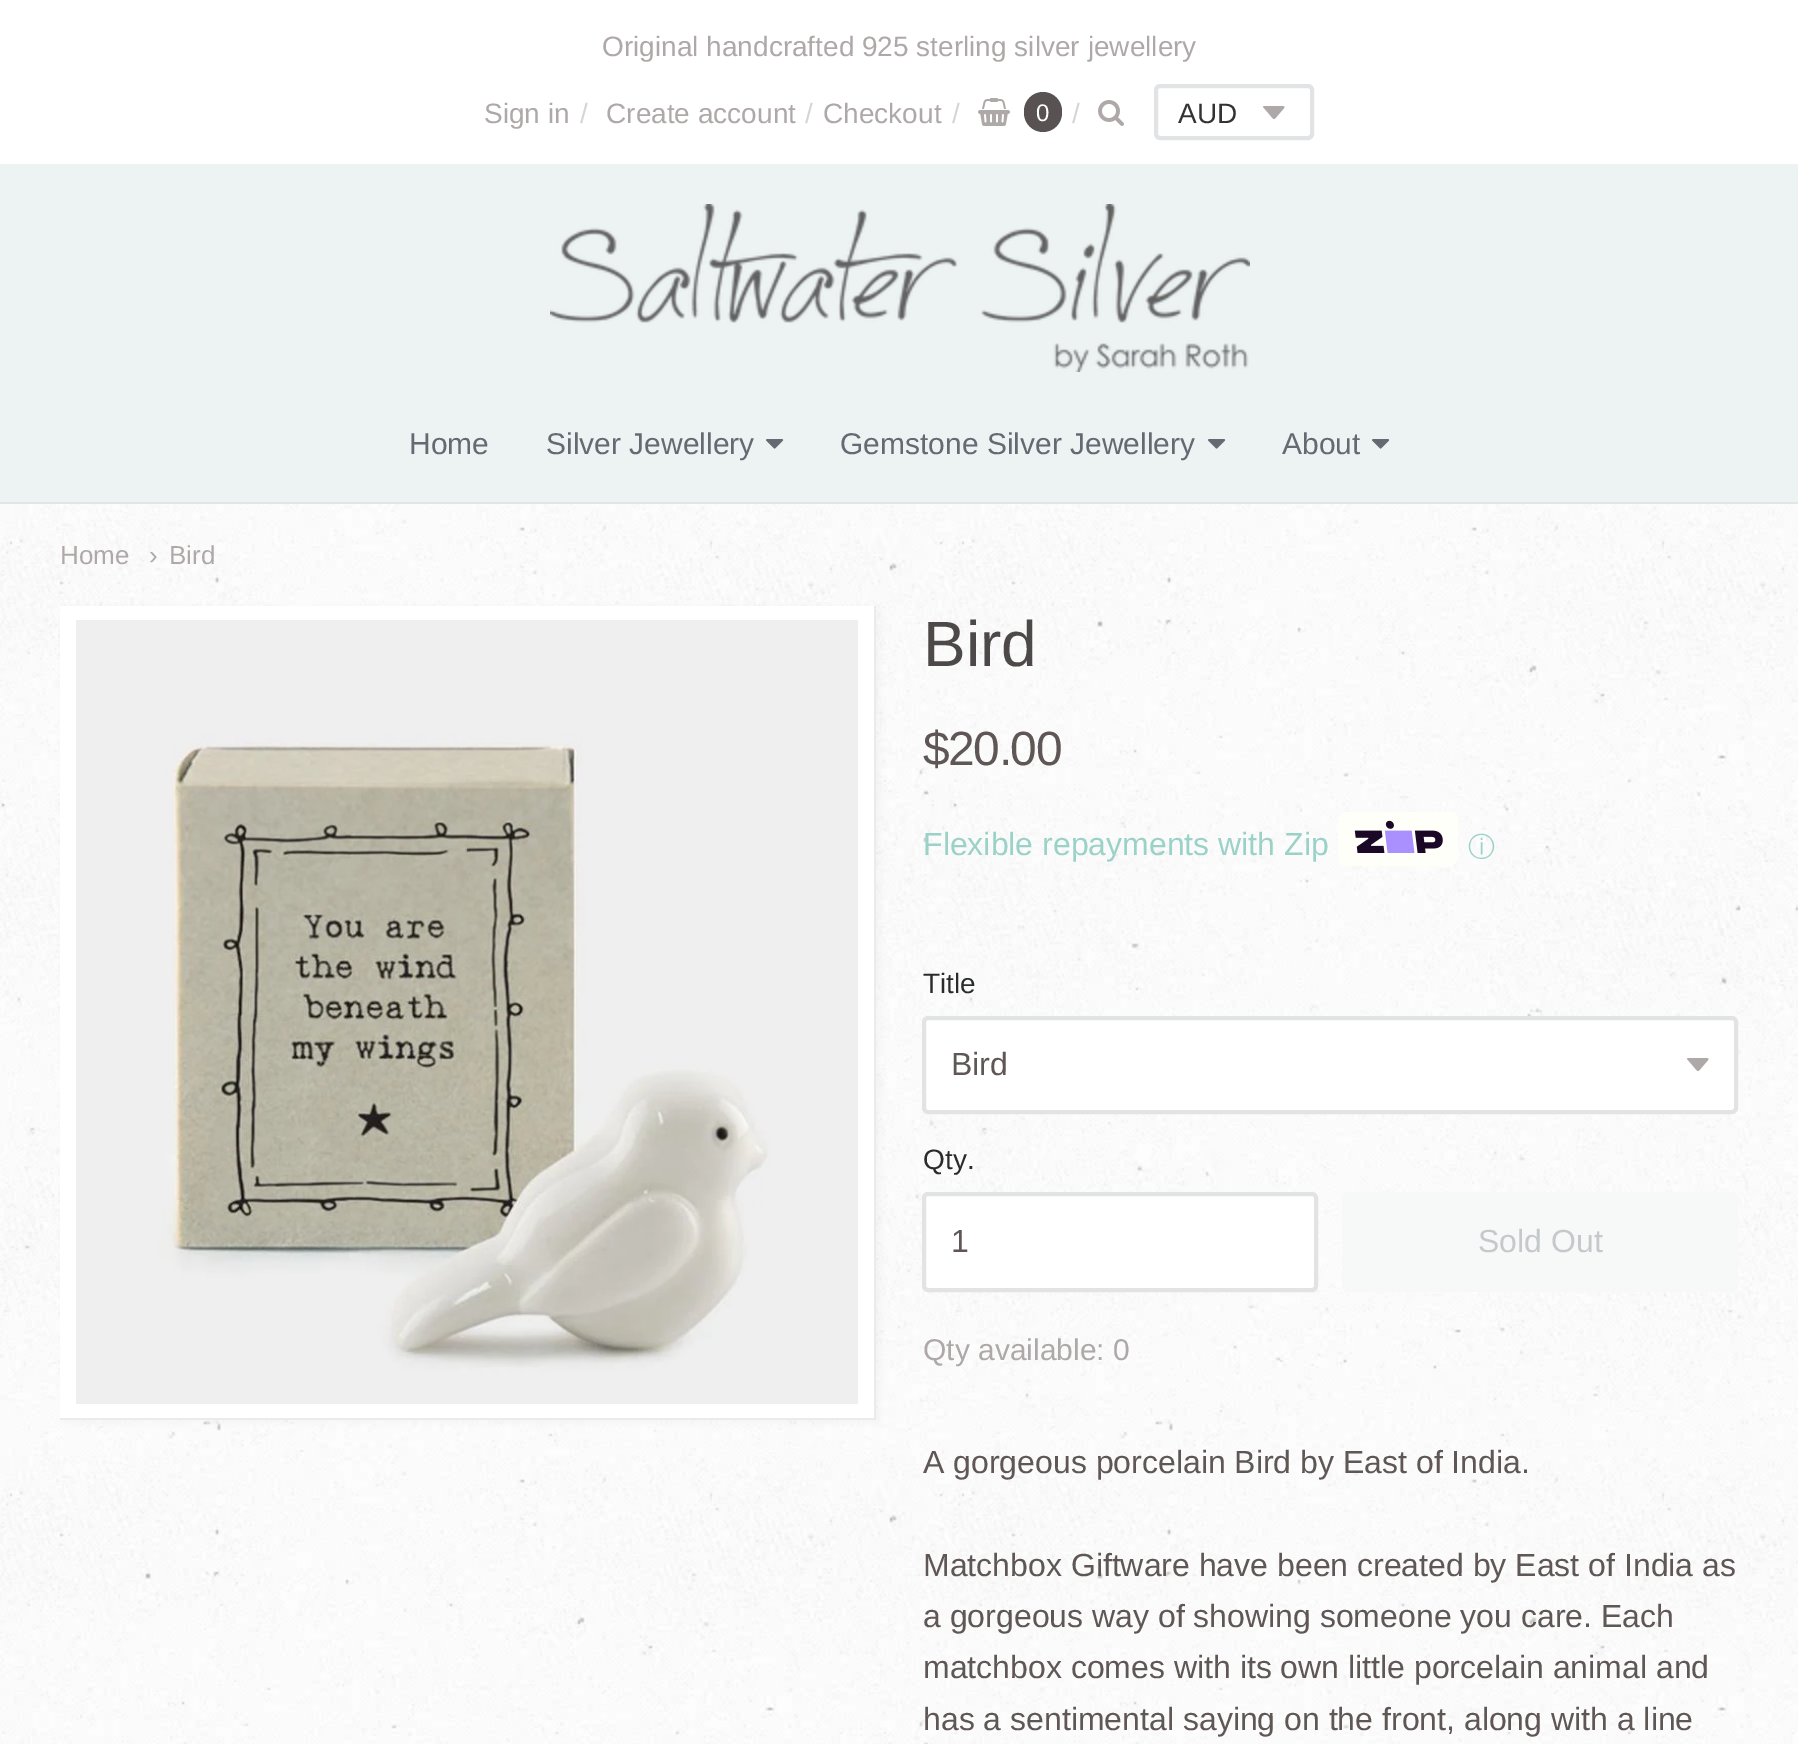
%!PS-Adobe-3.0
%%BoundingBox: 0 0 1798 1744
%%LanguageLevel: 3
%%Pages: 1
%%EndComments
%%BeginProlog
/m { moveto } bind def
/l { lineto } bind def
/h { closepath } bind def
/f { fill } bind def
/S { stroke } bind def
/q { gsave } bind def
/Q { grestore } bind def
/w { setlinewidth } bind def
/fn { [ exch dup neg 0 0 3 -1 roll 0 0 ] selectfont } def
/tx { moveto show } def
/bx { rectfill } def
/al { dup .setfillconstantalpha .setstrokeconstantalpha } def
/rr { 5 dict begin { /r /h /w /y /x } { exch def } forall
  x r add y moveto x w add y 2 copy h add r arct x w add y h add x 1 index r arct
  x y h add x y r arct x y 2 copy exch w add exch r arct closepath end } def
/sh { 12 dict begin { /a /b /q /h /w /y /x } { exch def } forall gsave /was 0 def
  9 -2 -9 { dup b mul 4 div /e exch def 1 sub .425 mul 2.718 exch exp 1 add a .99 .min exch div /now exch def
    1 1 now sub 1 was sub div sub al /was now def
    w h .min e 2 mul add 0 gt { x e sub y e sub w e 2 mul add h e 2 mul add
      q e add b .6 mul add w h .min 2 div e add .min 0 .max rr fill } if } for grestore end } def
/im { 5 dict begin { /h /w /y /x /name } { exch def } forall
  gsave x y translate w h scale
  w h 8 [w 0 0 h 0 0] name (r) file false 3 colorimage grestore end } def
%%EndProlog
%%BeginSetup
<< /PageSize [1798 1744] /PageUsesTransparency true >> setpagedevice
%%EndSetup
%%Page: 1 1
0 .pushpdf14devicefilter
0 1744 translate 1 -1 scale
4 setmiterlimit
1 setgray
0 0 1798 1744 bx
/LiberationSans-Regular 28 fn
0.682 0.659 0.659 setrgbcolor
(Original handcrafted 925 sterling silver jewellery) 602 56 tx
(Sign in) 484 123 tx
0.843 0.831 0.831 setrgbcolor
(/) 580 123 tx
0.682 0.659 0.659 setrgbcolor
(Create account) 606 123 tx
0.843 0.831 0.831 setrgbcolor
(/) 805 123 tx
0.682 0.659 0.659 setrgbcolor
(Checkout) 823 123 tx
0.843 0.831 0.831 setrgbcolor
(/) 952 123 tx
(image0.raw) 978 98 32 28 im
0.345 0.322 0.322 setrgbcolor
1024 92 38 40 19 rr f
/LiberationSans-Regular 24 fn
1 setgray
(0) 1036 121 tx
/LiberationSans-Regular 28 fn
0.843 0.831 0.831 setrgbcolor
(/) 1072 123 tx
(image1.raw) 1098 100 26 26 im
(image2.raw) 1263 106 22 13 im
0.882 0.89 0.894 setrgbcolor
4 w
1156 86 156 52 4 rr S
0.2 setgray
(AUD) 1178 123 tx
0.925 0.953 0.949 setrgbcolor
0 164 1798 338 bx
0.894 0.898 0.902 setrgbcolor
0 502 1798 2 bx
(image3.raw) 550 204 700 168 im
/LiberationSans-Regular 30 fn
0.392 0.412 0.447 setrgbcolor
(Home) 409 454 tx
(Silver Jewellery) 546 454 tx
(image4.raw) 766 439 18 10 im
(Gemstone Silver Jewellery) 840 454 tx
(image4.raw) 1208 439 18 10 im
(About) 1282 454 tx
(image4.raw) 1372 439 18 10 im
(image5.raw) 0 504 1798 1240 im
/LiberationSans-Regular 26 fn
0.682 0.659 0.659 setrgbcolor
(Home) 60 564 tx
(›) 149 564 tx
(Bird) 169 564 tx
0 setgray
64 608 816 814 0 5 0.04 sh
1 setgray
60 606 816 814 bx
0.922 setgray
876 606 m 876 1420 l 874 1418 l 874 606 l h f
0.08 al
0 setgray
876 1420 m 60 1420 l 60 1418 l 874 1418 l h f
1 al
(image6.raw) 76 620 782 784 im
/LiberationSans-Regular 64 fn
0.306 0.286 0.286 setrgbcolor
(Bird) 923 666 tx
/LiberationSans-Regular 48 fn
0.373 0.341 0.333 setrgbcolor
923 765 m -1.5 0 ($20.00) ashow
/LiberationSans-Regular 32 fn
0.608 0.824 0.78 setrgbcolor
(Flexible repayments with Zip) 923 855 tx
(image7.raw) 1338 812 120 54 im
/WenQuanYiZenHei-Medium 27 fn
(ⓘ) 1468 856 tx
/LiberationSans-Regular 28 fn
0.165 0.169 0.169 setrgbcolor
(Title) 923 993 tx
1 setgray
922 1016 816 98 6 rr f
(image2.raw) 1687 1058 22 13 im
0.882 0.89 0.894 setrgbcolor
924 1018 812 94 4 rr S
/LiberationSans-Regular 32 fn
0.373 0.341 0.333 setrgbcolor
(Bird) 951 1075 tx
/LiberationSans-Regular 28 fn
0.165 0.169 0.169 setrgbcolor
(Qty.) 923 1169 tx
1 setgray
924 1194 392 96 4 rr q f Q
0.882 0.89 0.894 setrgbcolor
S
/LiberationSans-Regular 32 fn
0.373 0.341 0.333 setrgbcolor
(1) 951 1252 tx
0.969 0.973 0.973 setrgbcolor
1342 1192 396 100 6 rr f
0.776 0.788 0.8 setrgbcolor
(Sold Out) 1478 1252 tx
/LiberationSans-Regular 30 fn
0.682 0.659 0.659 setrgbcolor
(Qty available: 0) 923 1360 tx
/LiberationSans-Regular 32 fn
0.373 0.341 0.333 setrgbcolor
(A gorgeous porcelain Bird by East of India.) 923 1473 tx
(Matchbox Giftware have been created by East of India as) 923 1576 tx
(a gorgeous way of showing someone you care. Each) 923 1627 tx
(matchbox comes with its own little porcelain animal and) 923 1678 tx
(has a sentimental saying on the front, along with a line) 923 1730 tx
.poppdf14devicefilter showpage
%%EOF
